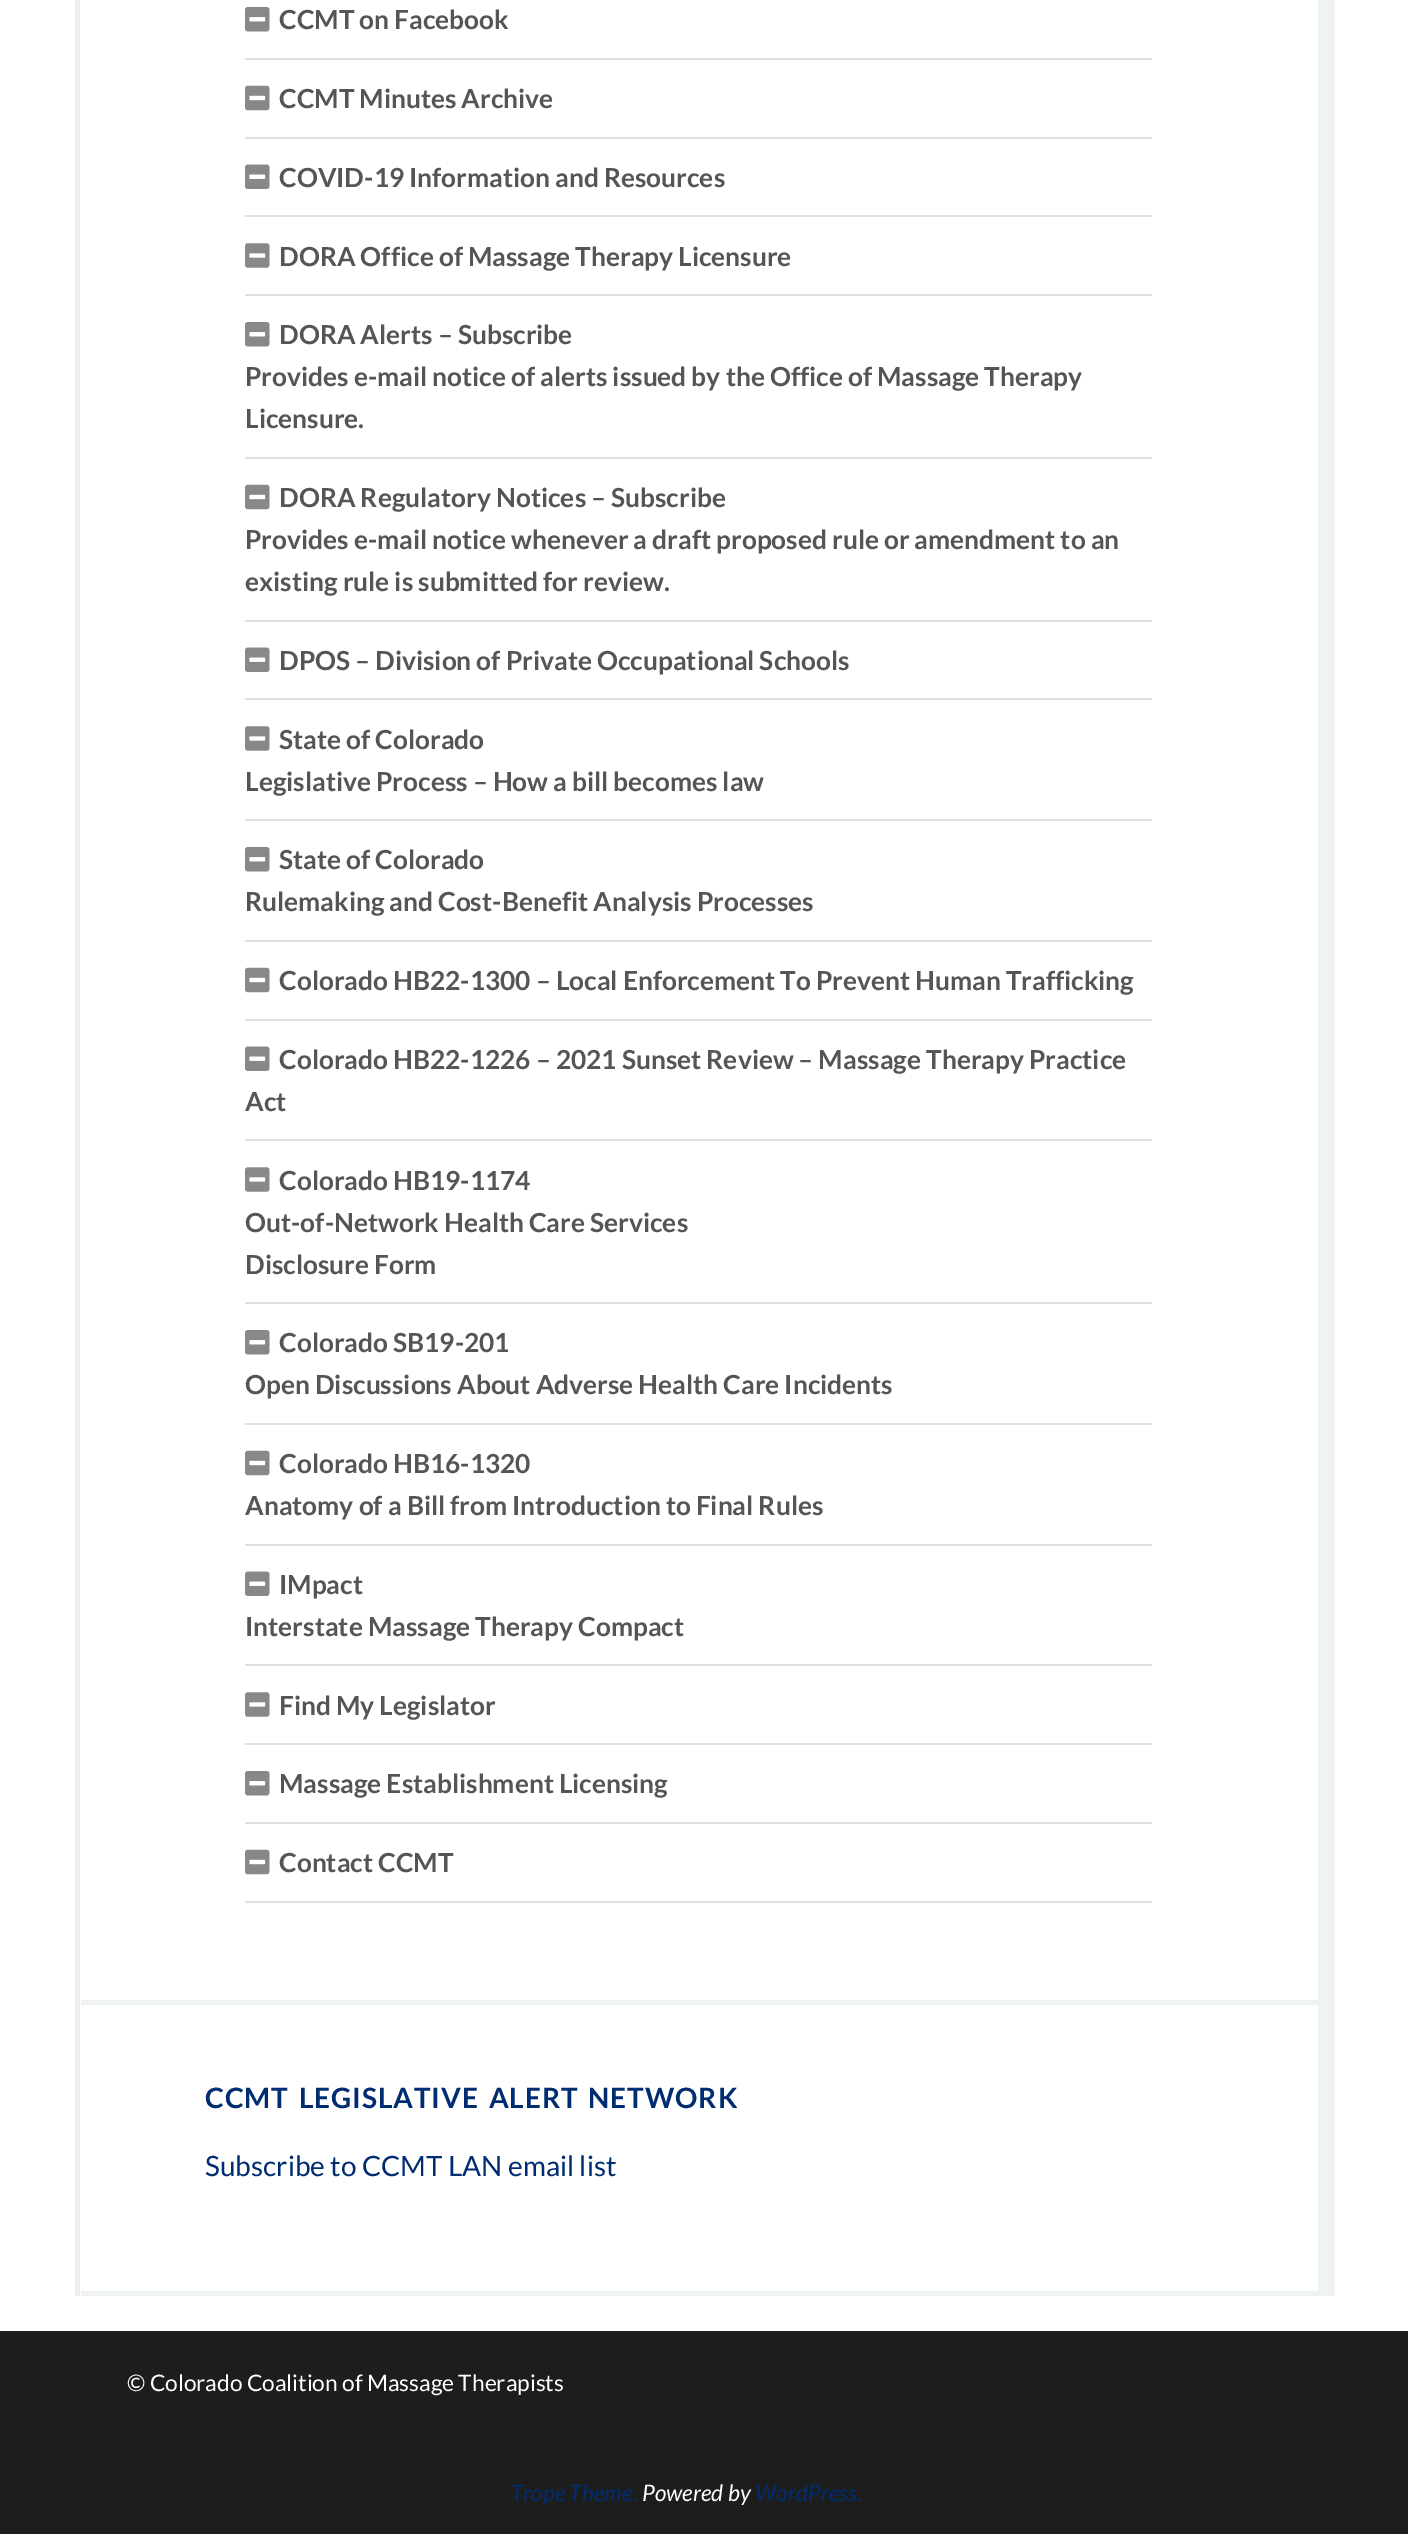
%!PS-Adobe-3.0
%%BoundingBox: 0 0 1408 2534
%%LanguageLevel: 3
%%Pages: 1
%%EndComments
%%BeginProlog
/m { moveto } bind def
/fn { [ exch dup neg 0 0 3 -1 roll 0 0 ] selectfont } def
/tx { moveto show } def
/bx { rectfill } def
/im { 5 dict begin { /h /w /y /x /name } { exch def } forall
  gsave x y translate w h scale
  w h 8 [w 0 0 h 0 0] name (r) file false 3 colorimage grestore end } def
%%EndProlog
%%BeginSetup
<< /PageSize [1408 2534] >> setpagedevice
%%EndSetup
%%Page: 1 1
0 2534 translate 1 -1 scale
4 setmiterlimit
1 setgray
0 0 1408 2534 bx
0.933 setgray
75 0 5 2296 bx
0.941 0.953 0.957 setrgbcolor
1318 0 17 2291 bx
81 2000 1237 5 bx
0.878 setgray
245 58 907 2 bx
(image0.raw) 245 7 25 25 im
/Lato-Bold 26.25 fn
0.333 setgray
(CCMT on Facebook) 279 29 tx
0.878 setgray
245 137 907 2 bx
(image1.raw) 245 85 25 26 im
0.333 setgray
(CCMT Minutes Archive) 279 108 tx
0.878 setgray
245 215 907 2 bx
(image2.raw) 245 164 25 25 im
0.333 setgray
(COVID-19 Information and Resources) 279 187 tx
0.878 setgray
245 294 907 2 bx
(image3.raw) 245 243 25 25 im
0.333 setgray
(DORA Office of Massage Therapy Licensure) 279 266 tx
0.878 setgray
245 457 907 2 bx
(image0.raw) 245 322 25 25 im
0.333 setgray
(DORA Alerts – Subscribe) 279 344 tx
(Provides e-mail notice of alerts issued by the Office of Massage Therapy) 245 386 tx
(Licensure.) 245 428 tx
0.878 setgray
245 620 907 2 bx
(image1.raw) 245 484 25 26 im
0.333 setgray
(DORA Regulatory Notices – Subscribe) 279 507 tx
(Provides e-mail notice whenever a draft proposed rule or amendment to an) 245 549 tx
(existing rule is submitted for review.) 245 591 tx
0.878 setgray
245 698 907 2 bx
(image2.raw) 245 647 25 25 im
0.333 setgray
(DPOS – Division of Private Occupational Schools) 279 670 tx
0.878 setgray
245 819 907 2 bx
(image3.raw) 245 726 25 25 im
0.333 setgray
(State of Colorado) 279 749 tx
(Legislative Process – How a bill becomes law) 245 791 tx
0.878 setgray
245 940 907 2 bx
(image0.raw) 245 847 25 25 im
0.333 setgray
(State of Colorado) 279 869 tx
(Rulemaking and Cost-Benefit Analysis Processes) 245 911 tx
0.878 setgray
245 1019 907 2 bx
(image1.raw) 245 967 25 26 im
0.333 setgray
(Colorado HB22-1300 – Local Enforcement To Prevent Human Trafficking) 279 990 tx
0.878 setgray
245 1139 907 2 bx
(image2.raw) 245 1046 25 25 im
0.333 setgray
(Colorado HB22-1226 – 2021 Sunset Review – Massage Therapy Practice) 279 1069 tx
(Act) 245 1111 tx
0.878 setgray
245 1302 907 2 bx
(image3.raw) 245 1167 25 25 im
0.333 setgray
(Colorado HB19-1174) 279 1190 tx
(Out-of-Network Health Care Services) 245 1232 tx
(Disclosure Form) 245 1274 tx
0.878 setgray
245 1423 907 2 bx
(image0.raw) 245 1330 25 25 im
0.333 setgray
(Colorado SB19-201) 279 1352 tx
(Open Discussions About Adverse Health Care Incidents) 245 1394 tx
0.878 setgray
245 1544 907 2 bx
(image1.raw) 245 1450 25 26 im
0.333 setgray
(Colorado HB16-1320) 279 1473 tx
(Anatomy of a Bill from Introduction to Final Rules) 245 1515 tx
0.878 setgray
245 1664 907 2 bx
(image2.raw) 245 1571 25 25 im
0.333 setgray
(IMpact) 279 1594 tx
(Interstate Massage Therapy Compact) 245 1636 tx
0.878 setgray
245 1743 907 2 bx
(image3.raw) 245 1692 25 25 im
0.333 setgray
(Find My Legislator) 279 1715 tx
0.878 setgray
245 1822 907 2 bx
(image0.raw) 245 1771 25 25 im
0.333 setgray
(Massage Establishment Licensing) 279 1793 tx
0.878 setgray
245 1901 907 2 bx
(image1.raw) 245 1849 25 26 im
0.333 setgray
(Contact CCMT) 279 1872 tx
0.941 0.953 0.957 setrgbcolor
81 2291 1254 5 bx
/Lato-Bold 28 fn
0 0.176 0.447 setrgbcolor
205 2108 m 3.5 0 32 0.9 0 (CCMT LEGISLATIVE ALERT NETWORK) awidthshow
/Lato-Regular 28 fn
(Subscribe to CCMT LAN email list) 205 2176 tx
0.114 setgray
0 2331 1408 203 bx
/Lato-Regular 22.75 fn
1 setgray
(© Colorado Coalition of Massage Therapists) 127 2391 tx
/Lato-Italic 22.75 fn
0 0.176 0.447 setrgbcolor
(Trope Theme.) 511 2501 tx
1 setgray
(Powered by) 642 2501 tx
0 0.176 0.447 setrgbcolor
(WordPress.) 755 2501 tx
showpage
%%EOF
